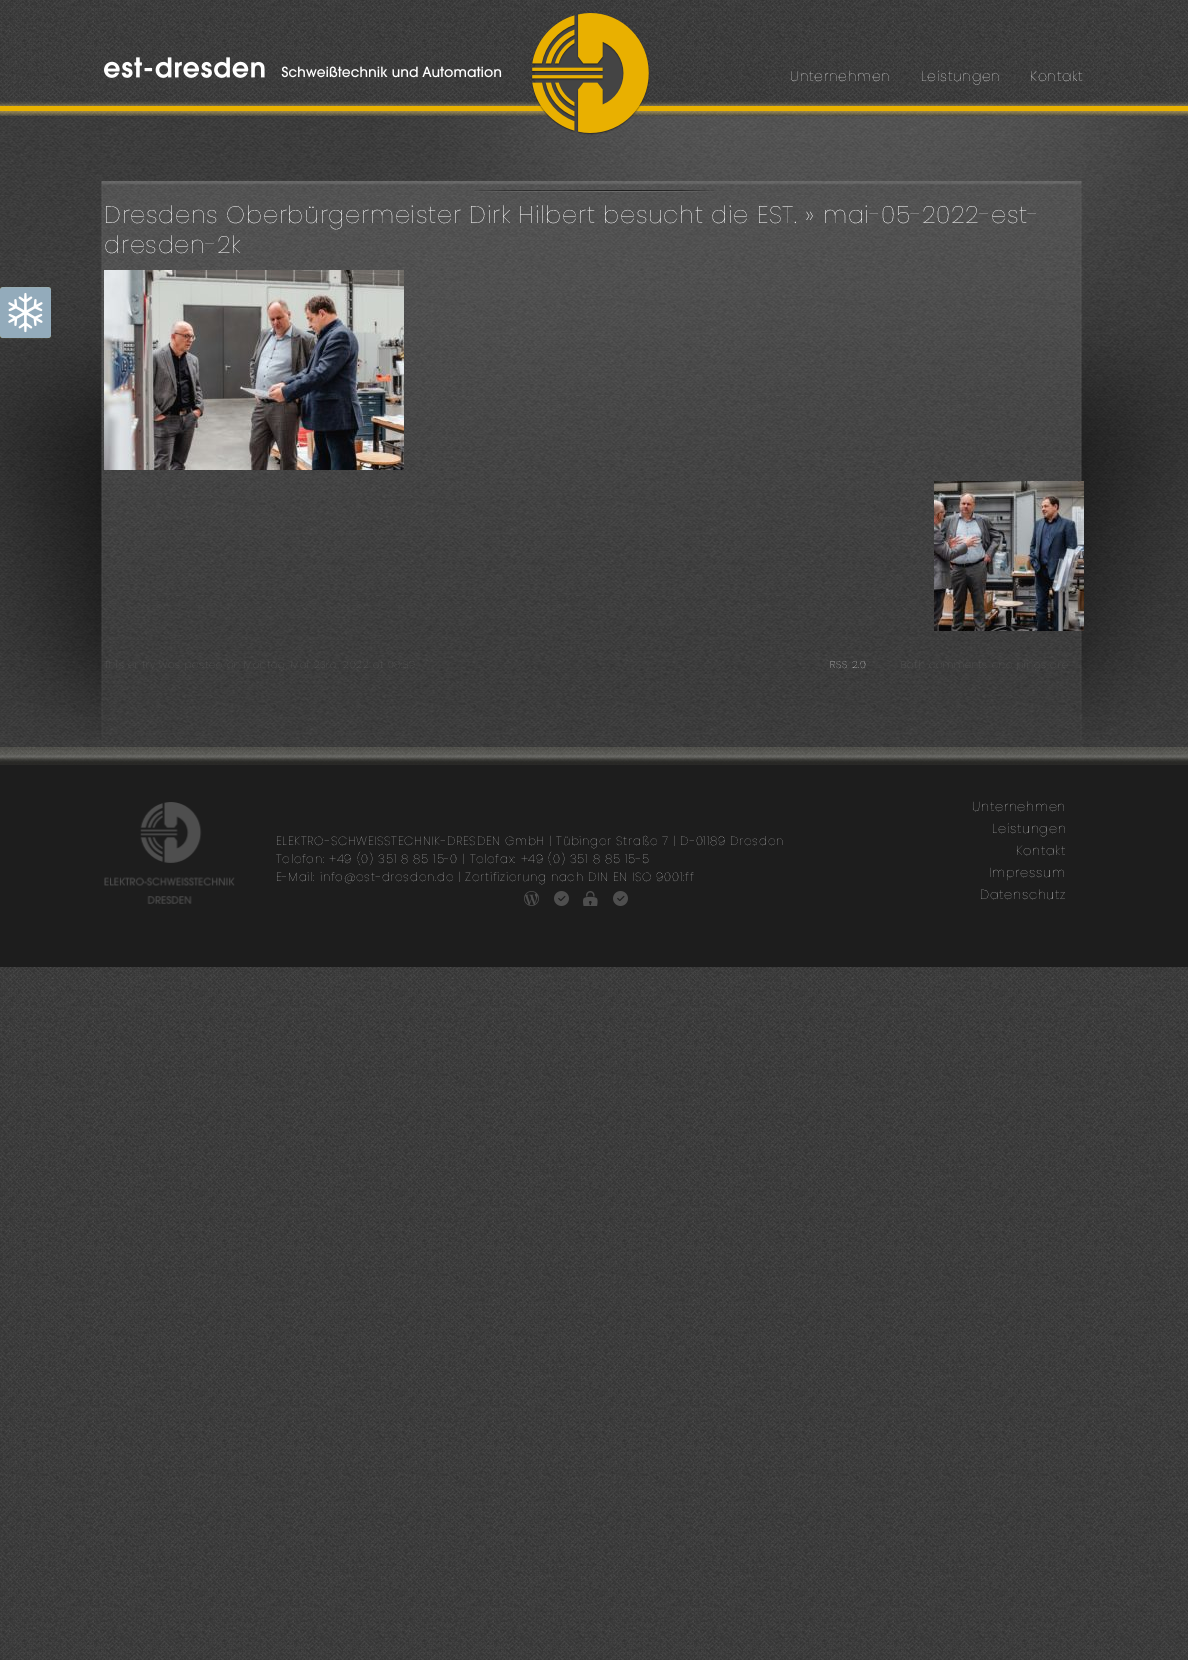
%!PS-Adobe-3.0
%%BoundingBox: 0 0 1188 1660
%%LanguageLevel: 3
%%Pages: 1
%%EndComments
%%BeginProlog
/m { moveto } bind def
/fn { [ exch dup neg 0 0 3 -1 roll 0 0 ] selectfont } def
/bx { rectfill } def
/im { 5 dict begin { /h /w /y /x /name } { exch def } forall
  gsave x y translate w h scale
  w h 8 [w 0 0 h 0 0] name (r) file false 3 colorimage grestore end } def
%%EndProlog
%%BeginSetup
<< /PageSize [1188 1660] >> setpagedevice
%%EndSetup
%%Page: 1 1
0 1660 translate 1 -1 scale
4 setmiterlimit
1 setgray
0 0 1188 1660 bx
(image0.raw) 0 0 1188 1660 im
(image1.raw) 0 101 1188 15 im
(image4.raw) 0 116 1188 631 im
(image2.raw) 104 13 546 122 im
/Poppins-Thin 14 fn
790 81 m 0.7 0 (Unternehmen) ashow
921 81 m 0.7 0 (Leistungen) ashow
1030 81 m 0.7 0 (Kontakt) ashow
(image3.raw) 0 287 51 52 im
(image5.raw) 474 190 240 2 im
/Poppins-Thin 24 fn
104 223 m 0.7 0 (Dresdens Oberbürgermeister Dirk Hilbert besucht die EST. » mai-05-2022-est-) ashow
104 253 m 0.7 0 (dresden-2k) ashow
(image6.raw) 104 270 300 200 im
(image7.raw) 934 481 150 150 im
/Poppins-Thin 10 fn
0.388 setgray
104 668 m 0.7 0 (This entry was posted on Montag, Mai 23rd, 2022 at 08:39) ashow
1 setgray
830 668 m 0.7 0 (RSS 2.0) ashow
0.388 setgray
901 668 m 0.7 0 (Both comments and pings are) ashow
(image8.raw) 0 747 1188 220 im
(image9.raw) 104 802 131 102 im
/Poppins-Thin 12 fn
0.753 setgray
276 845 m 0.7 0 (ELEKTRO-SCHWEISSTECHNIK-DRESDEN GmbH | Tübinger Straße 7 | D-01189 Dresden) ashow
276 863 m 0.7 0 (Telefon: +49 \(0\) 351 8 85 15-0 | Telefax: +49 \(0\) 351 8 85 15-5) ashow
276 881 m 0.7 0 (E-Mail: info@est-dresden.de | Zertifizierung nach DIN EN ISO 9001:ff) ashow
(image10.raw) 524 891 15 15 im
(image11.raw) 554 891 15 15 im
(image12.raw) 583 891 15 15 im
(image11.raw) 613 891 15 15 im
/Poppins-Thin 13 fn
972 811 m 0.7 0 (Unternehmen) ashow
992 833 m 0.7 0 (Leistungen) ashow
1016 855 m 0.7 0 (Kontakt) ashow
989 877 m 0.7 0 (Impressum) ashow
980 899 m 0.7 0 (Datenschutz) ashow
showpage
%%EOF
